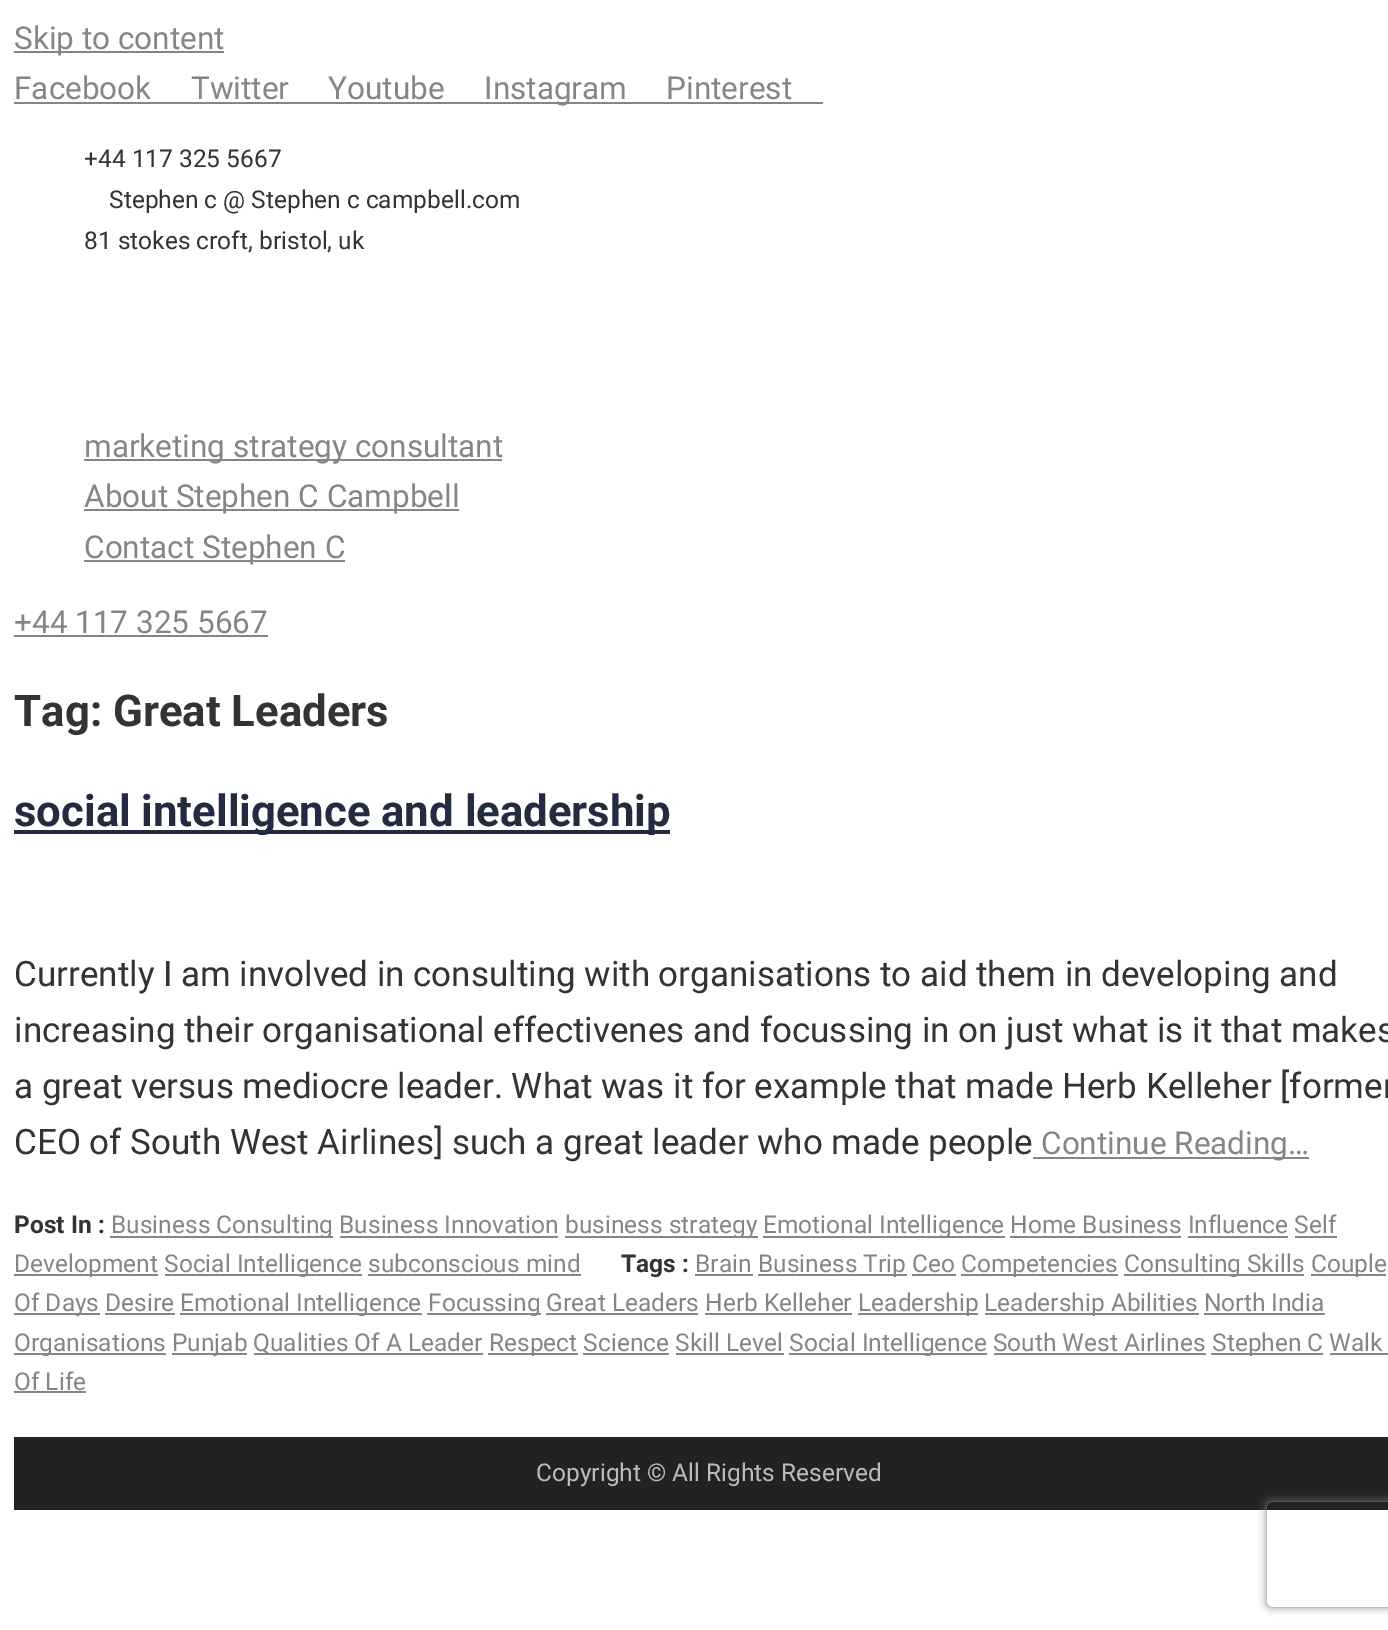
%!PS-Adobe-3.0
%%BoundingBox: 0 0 1388 1630
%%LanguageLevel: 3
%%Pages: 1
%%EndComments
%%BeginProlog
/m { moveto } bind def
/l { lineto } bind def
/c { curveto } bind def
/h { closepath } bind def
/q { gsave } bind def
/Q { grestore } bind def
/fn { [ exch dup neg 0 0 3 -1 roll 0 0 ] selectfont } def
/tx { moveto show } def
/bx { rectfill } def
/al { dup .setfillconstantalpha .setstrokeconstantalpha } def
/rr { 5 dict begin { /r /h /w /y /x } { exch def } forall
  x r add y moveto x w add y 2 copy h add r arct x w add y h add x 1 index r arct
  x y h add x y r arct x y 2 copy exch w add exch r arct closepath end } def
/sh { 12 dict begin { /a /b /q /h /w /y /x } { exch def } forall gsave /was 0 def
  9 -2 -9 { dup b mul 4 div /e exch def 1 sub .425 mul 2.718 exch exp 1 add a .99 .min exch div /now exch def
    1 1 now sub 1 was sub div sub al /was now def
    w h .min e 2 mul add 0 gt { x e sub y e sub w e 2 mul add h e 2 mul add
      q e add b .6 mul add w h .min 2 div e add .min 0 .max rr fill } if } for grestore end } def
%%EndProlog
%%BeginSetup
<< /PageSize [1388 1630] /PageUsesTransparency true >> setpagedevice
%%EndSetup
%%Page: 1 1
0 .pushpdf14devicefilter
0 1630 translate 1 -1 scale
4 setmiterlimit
1 setgray
0 0 1388 1630 bx
0.522 setgray
14 51 210 2 bx
/Roboto-Regular 31.5 fn
(Skip to content) 14 49 tx
(Facebook) 14 99 tx
14 102 809 2 bx
(Twitter) 191 99 tx
(Youtube) 328 99 tx
(Instagram) 484 99 tx
(Pinterest) 666 99 tx
/Roboto-Regular 24.5 fn
0.2 setgray
(+44 117 325 5667) 84 167 tx
(Stephen c @ Stephen c campbell.com) 109 208 tx
(81 stokes croft, bristol, uk) 84 249 tx
0.522 setgray
84 459 418 2 bx
/Roboto-Regular 31.5 fn
(marketing strategy consultant) 84 457 tx
84 509 375 2 bx
(About Stephen C Campbell) 84 507 tx
84 560 261 2 bx
(Contact Stephen C) 84 558 tx
(+44 117 325 5667) 14 633 tx
14 635 254 2 bx
/Roboto-Bold 43.75 fn
0.2 setgray
(Tag: Great Leaders) 14 726 tx
0.129 0.169 0.255 setrgbcolor
14 830 656 4 bx
(social intelligence and leadership) 14 826 tx
/Roboto-Regular 35 fn
0.2 setgray
(Currently I am involved in consulting with organisations to aid them in developing and) 14 986 tx
(increasing their organisational effectivenes and focussing in on just what is it that makes) 14 1042 tx
(a great versus mediocre leader. What was it for example that made Herb Kelleher [former) 14 1098 tx
(CEO of South West Airlines] such a great leader who made people) 14 1154 tx
0.522 setgray
1033 1157 276 2 bx
/Roboto-Regular 31.5 fn
(Continue Reading…) 1041 1154 tx
/Roboto-Bold 24.5 fn
0.2 setgray
(Post In :) 14 1233 tx
0.522 setgray
110 1236 223 2 bx
/Roboto-Regular 24.5 fn
(Business Consulting Business Innovation) 111 1233 tx
340 1236 218 2 bx
565 1236 193 2 bx
(business strategy) 565 1233 tx
763 1236 242 2 bx
(Emotional Intelligence Home Business Influence Self) 763 1233 tx
1010 1236 171 2 bx
1188 1236 100 2 bx
1295 1236 42 2 bx
14 1274 144 2 bx
(Development) 14 1272 tx
165 1274 197 2 bx
(Social Intelligence subconscious mind) 164 1272 tx
368 1274 213 2 bx
/Roboto-Bold 24.5 fn
0.2 setgray
(Tags :) 621 1272 tx
/Roboto-Regular 24.5 fn
0.522 setgray
(Brain) 695 1272 tx
695 1274 58 2 bx
758 1274 149 2 bx
(Business Trip Ceo) 758 1272 tx
912 1274 44 2 bx
961 1274 157 2 bx
(Competencies) 961 1272 tx
1124 1274 180 2 bx
(Consulting Skills) 1124 1272 tx
1311 1274 75 2 bx
(Couple) 1311 1272 tx
14 1313 86 2 bx
(Of Days Desire) 14 1311 tx
105 1313 70 2 bx
180 1313 242 2 bx
(Emotional Intelligence) 180 1311 tx
427 1313 114 2 bx
(Focussing Great Leaders Herb Kelleher) 428 1311 tx
546 1313 152 2 bx
705 1313 147 2 bx
858 1313 120 2 bx
(Leadership) 858 1311 tx
985 1313 214 2 bx
(Leadership Abilities North India) 984 1311 tx
1204 1313 121 2 bx
14 1353 152 2 bx
(Organisations) 14 1351 tx
172 1353 75 2 bx
(Punjab) 172 1351 tx
254 1353 229 2 bx
(Qualities Of A Leader) 253 1351 tx
488 1353 90 2 bx
(Respect Science Skill Level) 489 1351 tx
583 1353 86 2 bx
676 1353 108 2 bx
789 1353 198 2 bx
(Social Intelligence South West Airlines) 789 1351 tx
994 1353 212 2 bx
1211 1353 112 2 bx
(Stephen C Walk) 1212 1351 tx
1330 1353 58 2 bx
(Of Life) 14 1390 tx
14 1391 72 2 bx
0.133 setgray
14 1437 1374 73 bx
0.733 setgray
(Copyright © All Rights Reserved) 536 1481 tx
q
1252 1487 m 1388 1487 l 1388 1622 l 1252 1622 l h 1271 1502 m 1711 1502 l 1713 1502 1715 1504 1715 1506 c 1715 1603 l 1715 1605 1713 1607 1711 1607 c 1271 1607 l 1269 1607 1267 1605 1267 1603 c 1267 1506 l 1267 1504 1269 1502 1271 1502 c h eoclip newpath
0.502 setgray
1267 1502 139 105 4 4.5 1 sh
Q
.poppdf14devicefilter showpage
%%EOF
